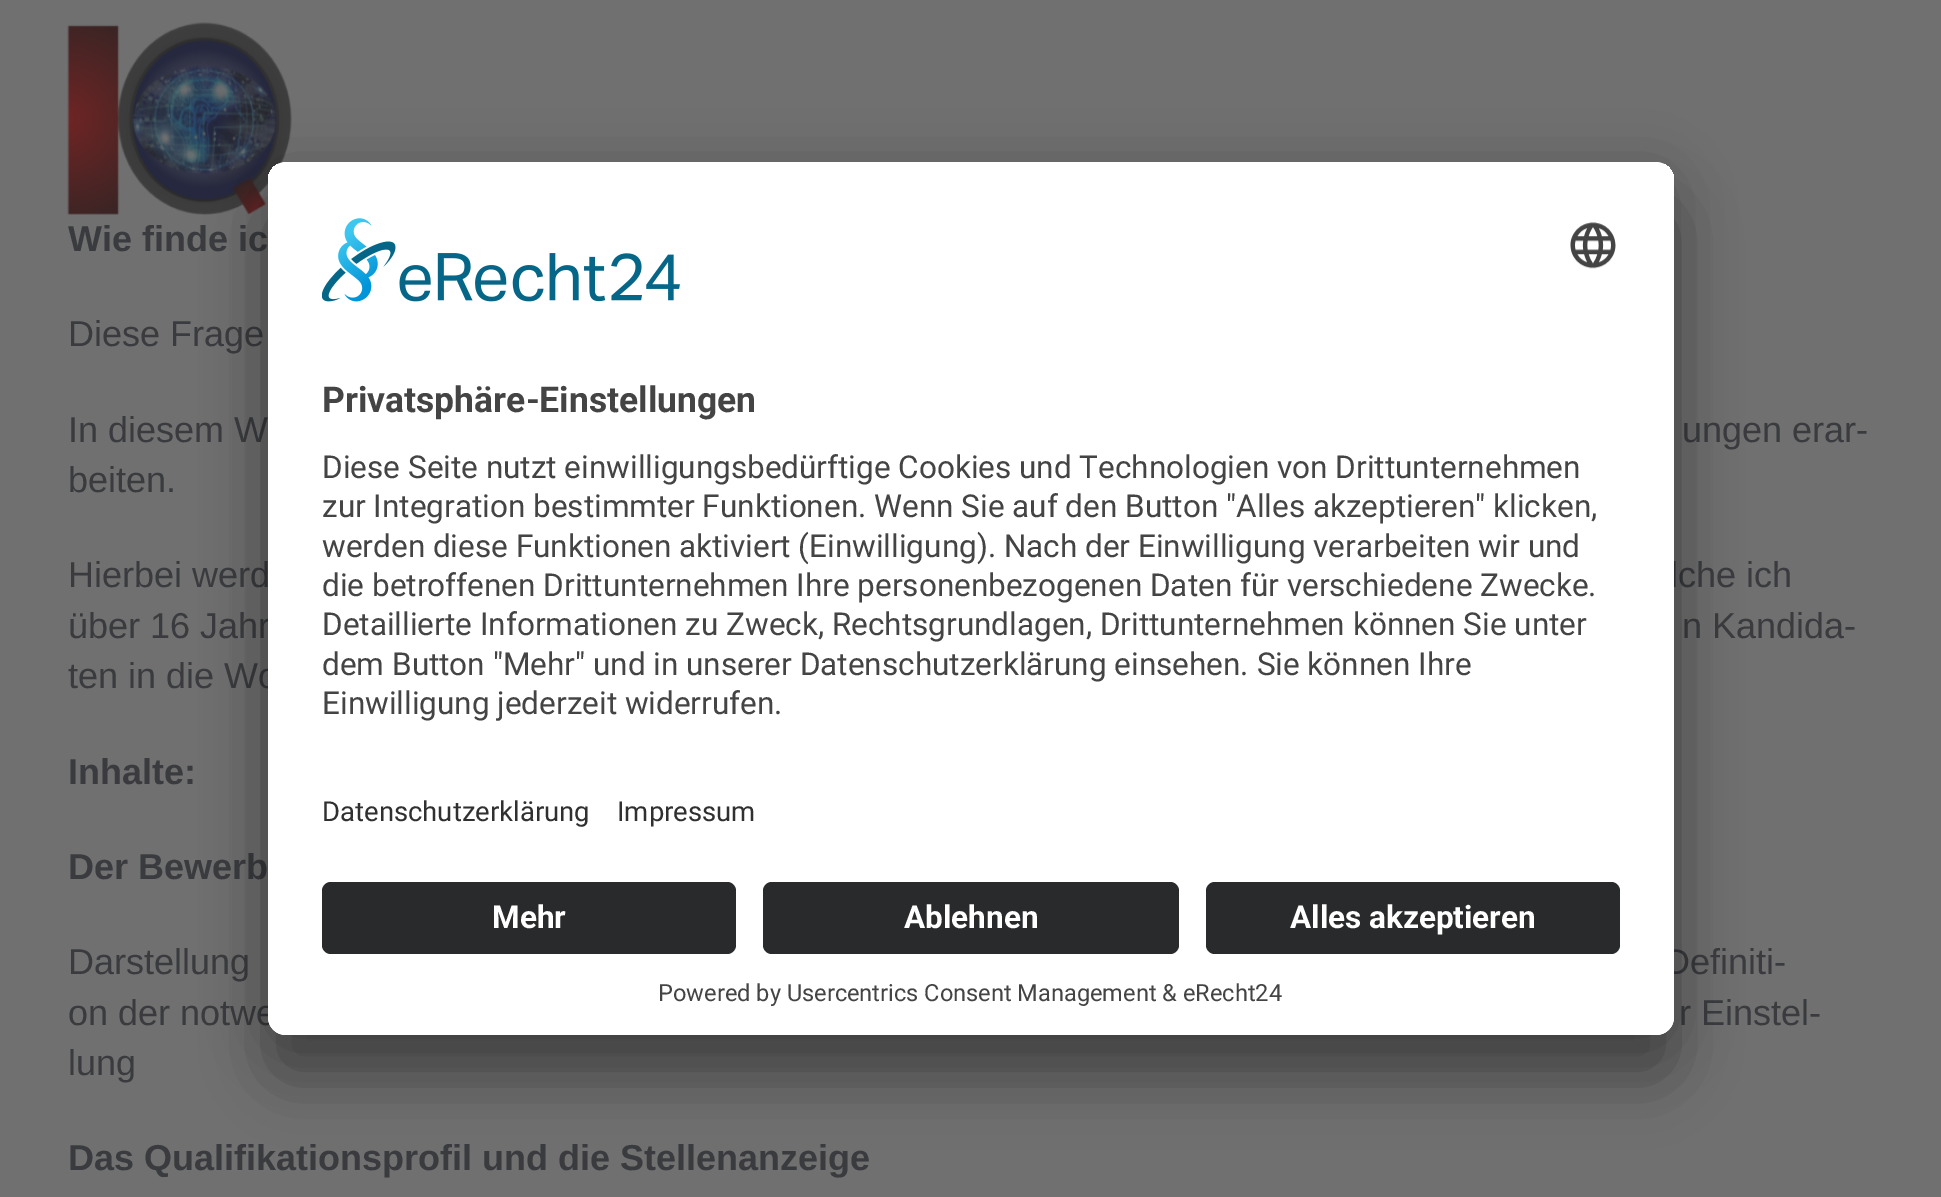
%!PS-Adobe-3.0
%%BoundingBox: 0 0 1941 1197
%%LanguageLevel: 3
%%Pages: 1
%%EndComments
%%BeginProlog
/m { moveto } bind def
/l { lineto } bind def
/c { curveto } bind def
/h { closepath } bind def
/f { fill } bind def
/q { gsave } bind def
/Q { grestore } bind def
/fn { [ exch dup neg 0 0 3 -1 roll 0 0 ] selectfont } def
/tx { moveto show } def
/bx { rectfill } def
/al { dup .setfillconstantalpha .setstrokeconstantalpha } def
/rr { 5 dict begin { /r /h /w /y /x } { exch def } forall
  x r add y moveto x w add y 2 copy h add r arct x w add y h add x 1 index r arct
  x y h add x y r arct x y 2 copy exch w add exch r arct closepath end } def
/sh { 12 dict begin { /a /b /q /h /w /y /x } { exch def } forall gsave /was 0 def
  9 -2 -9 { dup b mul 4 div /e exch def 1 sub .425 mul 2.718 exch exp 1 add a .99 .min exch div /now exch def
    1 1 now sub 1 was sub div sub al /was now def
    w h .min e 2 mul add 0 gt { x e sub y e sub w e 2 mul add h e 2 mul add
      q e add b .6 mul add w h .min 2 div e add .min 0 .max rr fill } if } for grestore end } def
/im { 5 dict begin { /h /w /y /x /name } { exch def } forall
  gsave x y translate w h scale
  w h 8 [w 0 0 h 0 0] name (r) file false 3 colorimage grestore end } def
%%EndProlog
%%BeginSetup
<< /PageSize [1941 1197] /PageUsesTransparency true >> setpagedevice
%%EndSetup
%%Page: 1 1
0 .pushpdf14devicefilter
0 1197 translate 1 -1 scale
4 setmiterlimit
0.439 setgray
0 0 1941 1197 bx
(image0.raw) 67 22 225 193 im
/LiberationSans-Bold 36 fn
0.227 0.231 0.243 setrgbcolor
(Wie finde ic) 68 251 tx
/LiberationSans-Regular 36 fn
(Diese Frage) 68 346 tx
(In diesem W) 68 442 tx
(ungen erar-) 1682 442 tx
(beiten.) 68 492 tx
(Hierbei werd) 68 587 tx
(lche ich) 1670 587 tx
(über 16 Jahr) 68 638 tx
(n Kandida-) 1682 638 tx
(ten in die Wo) 68 688 tx
/LiberationSans-Bold 36 fn
(Inhalte:) 68 784 tx
(Der Bewerb) 68 879 tx
/LiberationSans-Regular 36 fn
(Darstellung) 68 974 tx
(Definiti-) 1664 974 tx
(on der notwe) 68 1025 tx
(r Einstel-) 1679 1025 tx
(lung) 68 1075 tx
/LiberationSans-Bold 36 fn
(Das Qualifikationsprofil und die Stellenanzeige) 68 1170 tx
0 setgray
268 207 1406 873 18 31.5 0.3 sh
268 173 1406 873 18 29 0.22 sh
1 setgray
268 162 1406 873 18 rr f
q
268 162 1406 873 18 rr clip newpath
286 162 m 1656 162 l 1666 162 1674 170 1674 180 c 1674 864 l 268 864 l 268 180 l 268 170 276 162 286 162 c h clip newpath
268 164 1406 700 bx
Q
(image1.raw) 322 218 358 84 im
(image2.raw) 1570 222 46 47 im
/Roboto-Bold 35.5 fn
0.267 setgray
(Privatsphäre-Einstellungen) 322 412 tx
/Roboto-Regular 31.5 fn
(Diese Seite nutzt einwilligungsbedürftige Cookies und Technologien von Drittunternehmen) 322 478 tx
(zur Integration bestimmter Funktionen. Wenn Sie auf den Button "Alles akzeptieren" klicken,) 322 517 tx
(werden diese Funktionen aktiviert \(Einwilligung\). Nach der Einwilligung verarbeiten wir und) 322 557 tx
(die betroffenen Drittunternehmen Ihre personenbezogenen Daten für verschiedene Zwecke.) 322 596 tx
(Detaillierte Informationen zu Zweck, Rechtsgrundlagen, Drittunternehmen können Sie unter) 322 635 tx
(dem Button "Mehr" und in unserer Datenschutzerklärung einsehen. Sie können Ihre) 322 675 tx
(Einwilligung jederzeit widerrufen.) 322 714 tx
/Roboto-Regular 27.5 fn
0.188 setgray
(Datenschutzerklärung) 322 821 tx
(Impressum) 617 821 tx
1 setgray
268 864 m 1674 864 l 1674 1017 l 1674 1027 1666 1035 1656 1035 c 286 1035 l 276 1035 268 1027 268 1017 c h f
0.161 0.165 0.169 setrgbcolor
322 882 414 72 9 rr f
/Roboto-Bold 31.5 fn
1 setgray
(Mehr) 492 928 tx
0.161 0.165 0.169 setrgbcolor
763 882 416 72 9 rr f
1 setgray
(Ablehnen) 904 928 tx
0.161 0.165 0.169 setrgbcolor
1206 882 414 72 9 rr f
1 setgray
(Alles akzeptieren) 1290 928 tx
/Roboto-Regular 23.6 fn
0.267 setgray
(Powered by Usercentrics Consent Management & eRecht24) 658 1001 tx
.poppdf14devicefilter showpage
%%EOF
